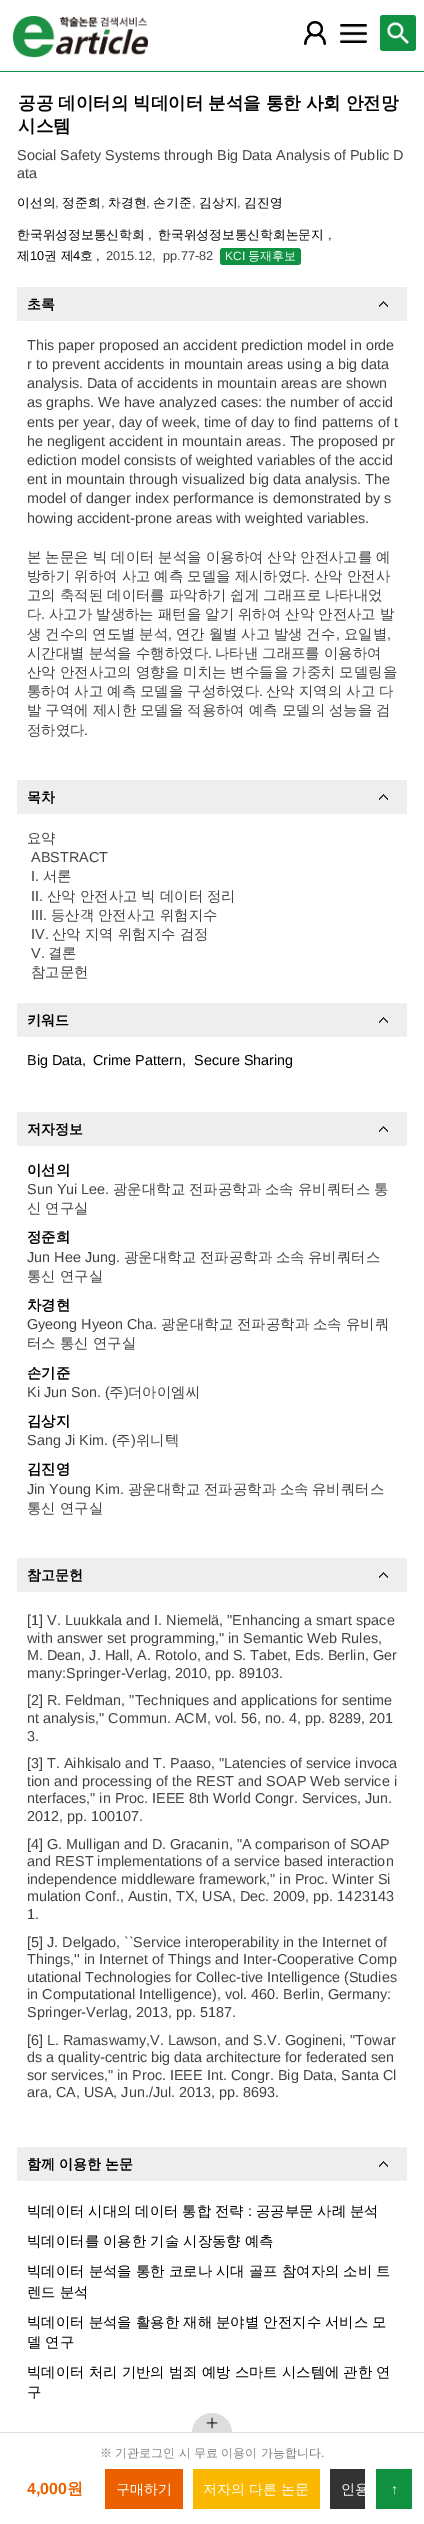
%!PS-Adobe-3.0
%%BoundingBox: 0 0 424 2524
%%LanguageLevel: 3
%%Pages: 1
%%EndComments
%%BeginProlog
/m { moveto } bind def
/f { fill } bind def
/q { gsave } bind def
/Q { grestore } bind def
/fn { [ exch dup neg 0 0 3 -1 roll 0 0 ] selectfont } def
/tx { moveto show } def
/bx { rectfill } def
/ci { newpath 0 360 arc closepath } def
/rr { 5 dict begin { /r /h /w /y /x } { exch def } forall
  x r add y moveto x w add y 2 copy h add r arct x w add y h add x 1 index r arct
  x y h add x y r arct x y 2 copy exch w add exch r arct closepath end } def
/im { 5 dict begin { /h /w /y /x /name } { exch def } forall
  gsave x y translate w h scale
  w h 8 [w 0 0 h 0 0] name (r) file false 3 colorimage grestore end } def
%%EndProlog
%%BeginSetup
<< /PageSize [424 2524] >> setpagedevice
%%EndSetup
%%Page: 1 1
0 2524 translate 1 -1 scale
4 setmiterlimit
1 setgray
0 0 424 2524 bx
0.067 0.573 0.259 setrgbcolor
0 71 424 1 bx
(image0.raw) 13 16 135 42 im
(image1.raw) 304 21 22 24 im
(image2.raw) 340 24 27 19 im
380 15 36 36 3 rr f
(image3.raw) 387 22 22 22 im
/WenQuanYiZenHei-Bold 17.6 fn
0 setgray
18 109 m -0.5 0 32 (공공 데이터의 빅데이터 분석을 통한 사회 안전망) widthshow
(시스템) 18 132 tx
/LiberationSans-Regular 14.4 fn
0.267 setgray
(Social Safety Systems through Big Data Analysis of Public D) 17 160 tx
(ata) 17 178 tx
/WenQuanYiZenHei-Medium 12.75 fn
0 setgray
(이선의) 17 207 tx
/LiberationSans-Regular 12.75 fn
0.267 setgray
(,) 55 207 tx
/WenQuanYiZenHei-Medium 12.75 fn
0 setgray
(정준희) 62 207 tx
/LiberationSans-Regular 12.75 fn
0.267 setgray
(,) 101 207 tx
/WenQuanYiZenHei-Medium 12.75 fn
0 setgray
(차경현) 108 207 tx
/LiberationSans-Regular 12.75 fn
0.267 setgray
(,) 146 207 tx
/WenQuanYiZenHei-Medium 12.75 fn
0 setgray
(손기준) 153 207 tx
/LiberationSans-Regular 12.75 fn
0.267 setgray
(,) 192 207 tx
/WenQuanYiZenHei-Medium 12.75 fn
0 setgray
(김상지) 199 207 tx
/LiberationSans-Regular 12.75 fn
0.267 setgray
(,) 237 207 tx
/WenQuanYiZenHei-Medium 12.75 fn
0 setgray
(김진영) 244 207 tx
(한국위성정보통신학회) 17 239 tx
/LiberationSans-Regular 12.75 fn
(,) 148 239 tx
/WenQuanYiZenHei-Medium 12.75 fn
(한국위성정보통신학회논문지) 158 239 tx
/LiberationSans-Regular 12.75 fn
(,) 328 239 tx
/WenQuanYiZenHei-Medium 12.75 fn
(제) 17 260 tx
/LiberationSans-Regular 12.75 fn
(10) 30 260 tx
/WenQuanYiZenHei-Medium 12.75 fn
(권 제) 44 260 tx
/LiberationSans-Regular 12.75 fn
(4) 73 260 tx
/WenQuanYiZenHei-Medium 12.75 fn
(호) 80 260 tx
/LiberationSans-Regular 12.75 fn
(,) 96 260 tx
0.267 setgray
(2015.12,) 106 260 tx
(pp.77-82) 163 260 tx
0.067 0.573 0.259 setrgbcolor
220 248 81 17 3 rr f
/LiberationSans-Regular 12 fn
1 setgray
(KCI) 225 260 tx
/WenQuanYiZenHei-Medium 12 fn
(등재후보) 248 260 tx
0.933 setgray
17 287 390 34 bx
(image4.raw) 379 301 9 6 im
/WenQuanYiZenHei-Bold 14 fn
0 setgray
(초록) 27 309 tx
/LiberationSans-Regular 14.4 fn
0.267 setgray
(This paper proposed an accident prediction model in orde) 27 350 tx
(r to prevent accidents in mountain areas using a big data) 27 369 tx
(analysis. Data of accidents in mountain areas are shown) 27 388 tx
(as graphs. We have analyzed cases: the number of accid) 27 407 tx
(ents per year, day of week, time of day to find patterns of t) 27 427 tx
(he negligent accident in mountain areas. The proposed pr) 27 446 tx
(ediction model consists of weighted variables of the accid) 27 465 tx
(ent in mountain through visualized big data analysis. The) 27 484 tx
(model of danger index performance is demonstrated by s) 27 503 tx
(howing accident-prone areas with weighted variables.) 27 523 tx
/WenQuanYiZenHei-Medium 14.4 fn
27 562 m -0.25 0 32 (본 논문은 빅 데이터 분석을 이용하여 산악 안전사고를 예) widthshow
27 581 m -0.25 0 32 (방하기 위하여 사고 예측 모델을 제시하였다) widthshow
/LiberationSans-Regular 14.4 fn
(.) 306 581 tx
/WenQuanYiZenHei-Medium 14.4 fn
314 581 m -0.25 0 32 (산악 안전사) widthshow
27 600 m -0.25 0 32 (고의 축적된 데이터를 파악하기 쉽게 그래프로 나타내었) widthshow
(다) 27 619 tx
/LiberationSans-Regular 14.4 fn
(.) 41 619 tx
/WenQuanYiZenHei-Medium 14.4 fn
49 619 m -0.25 0 32 (사고가 발생하는 패턴을 알기 위하여 산악 안전사고 발) widthshow
27 639 m -0.5 0 32 (생 건수의 연도별 분석) widthshow
/LiberationSans-Regular 14.4 fn
(,) 168 639 tx
/WenQuanYiZenHei-Medium 14.4 fn
176 639 m -0.5 0 32 (연간 월별 사고 발생 건수) widthshow
/LiberationSans-Regular 14.4 fn
(,) 336 639 tx
/WenQuanYiZenHei-Medium 14.4 fn
(요일별) 344 639 tx
/LiberationSans-Regular 14.4 fn
(,) 387 639 tx
/WenQuanYiZenHei-Medium 14.4 fn
27 658 m -0.25 0 32 (시간대별 분석을 수행하였다) widthshow
/LiberationSans-Regular 14.4 fn
(.) 208 658 tx
/WenQuanYiZenHei-Medium 14.4 fn
215 658 m -0.25 0 32 (나타낸 그래프를 이용하여) widthshow
27 677 m -0.25 0 32 (산악 안전사고의 영향을 미치는 변수들을 가중치 모델링을) widthshow
27 696 m -0.25 0 32 (통하여 사고 예측 모델을 구성하였다) widthshow
/LiberationSans-Regular 14.4 fn
(.) 259 696 tx
/WenQuanYiZenHei-Medium 14.4 fn
266 696 m -0.25 0 32 (산악 지역의 사고 다) widthshow
27 715 m -0.25 0 32 (발 구역에 제시한 모델을 적용하여 예측 모델의 성능을 검) widthshow
(정하였다) 27 735 tx
/LiberationSans-Regular 14.4 fn
(.) 84 735 tx
0.933 setgray
17 780 390 34 bx
(image4.raw) 379 794 9 6 im
/WenQuanYiZenHei-Bold 14 fn
0 setgray
(목차) 27 802 tx
/WenQuanYiZenHei-Medium 14.4 fn
0.267 setgray
(요약) 27 843 tx
/LiberationSans-Regular 14.4 fn
(ABSTRACT) 31 862 tx
(I.) 31 881 tx
/WenQuanYiZenHei-Medium 14.4 fn
(서론) 43 881 tx
/LiberationSans-Regular 14.4 fn
(II.) 31 901 tx
/WenQuanYiZenHei-Medium 14.4 fn
(산악) 47 901 tx
(안전사고) 80 901 tx
(빅) 141 901 tx
(데이터) 160 901 tx
(정리) 207 901 tx
/LiberationSans-Regular 14.4 fn
(III.) 31 920 tx
/WenQuanYiZenHei-Medium 14.4 fn
(등산객) 51 920 tx
(안전사고) 98 920 tx
(위험지수) 160 920 tx
/LiberationSans-Regular 14.4 fn
(IV.) 31 939 tx
/WenQuanYiZenHei-Medium 14.4 fn
(산악) 52 939 tx
(지역) 85 939 tx
(위험지수) 118 939 tx
(검정) 180 939 tx
/LiberationSans-Regular 14.4 fn
(V.) 31 958 tx
/WenQuanYiZenHei-Medium 14.4 fn
(결론) 48 958 tx
(참고문헌) 31 977 tx
0.933 setgray
17 1003 390 34 bx
(image4.raw) 379 1017 9 6 im
/WenQuanYiZenHei-Bold 14 fn
0 setgray
(키워드) 27 1025 tx
/LiberationSans-Regular 14.4 fn
(Big Data,) 27 1065 tx
(Crime Pattern,) 93 1065 tx
(Secure Sharing) 194 1065 tx
0.933 setgray
17 1112 390 34 bx
(image4.raw) 379 1126 9 6 im
/WenQuanYiZenHei-Bold 14 fn
0 setgray
(저자정보) 27 1134 tx
/WenQuanYiZenHei-Bold 14.4 fn
(이선의) 27 1175 tx
/LiberationSans-Regular 14.4 fn
0.267 setgray
(Sun Yui Lee.) 27 1194 tx
/WenQuanYiZenHei-Medium 14.4 fn
(광운대학교) 113 1194 tx
(전파공학과) 189 1194 tx
(소속) 265 1194 tx
(유비쿼터스) 298 1194 tx
(통) 374 1194 tx
27 1213 m -0.25 0 32 (신 연구실) widthshow
/WenQuanYiZenHei-Bold 14.4 fn
0 setgray
(정준희) 27 1242 tx
/LiberationSans-Regular 14.4 fn
0.267 setgray
(Jun Hee Jung.) 27 1262 tx
/WenQuanYiZenHei-Medium 14.4 fn
(광운대학교) 124 1262 tx
(전파공학과) 200 1262 tx
(소속) 276 1262 tx
(유비쿼터스) 308 1262 tx
27 1281 m -0.25 0 32 (통신 연구실) widthshow
/WenQuanYiZenHei-Bold 14.4 fn
0 setgray
(차경현) 27 1310 tx
/LiberationSans-Regular 14.4 fn
0.267 setgray
(Gyeong Hyeon Cha.) 27 1329 tx
/WenQuanYiZenHei-Medium 14.4 fn
(광운대학교) 161 1329 tx
(전파공학과) 237 1329 tx
(소속) 313 1329 tx
(유비쿼) 346 1329 tx
27 1348 m -0.25 0 32 (터스 통신 연구실) widthshow
/WenQuanYiZenHei-Bold 14.4 fn
0 setgray
(손기준) 27 1378 tx
/LiberationSans-Regular 14.4 fn
0.267 setgray
(Ki Jun Son. \() 27 1397 tx
/WenQuanYiZenHei-Medium 14.4 fn
(주) 109 1397 tx
/LiberationSans-Regular 14.4 fn
(\)) 124 1397 tx
/WenQuanYiZenHei-Medium 14.4 fn
(더아이엠씨) 128 1397 tx
/WenQuanYiZenHei-Bold 14.4 fn
0 setgray
(김상지) 27 1426 tx
/LiberationSans-Regular 14.4 fn
0.267 setgray
(Sang Ji Kim. \() 27 1445 tx
/WenQuanYiZenHei-Medium 14.4 fn
(주) 116 1445 tx
/LiberationSans-Regular 14.4 fn
(\)) 131 1445 tx
/WenQuanYiZenHei-Medium 14.4 fn
(위니텍) 136 1445 tx
/WenQuanYiZenHei-Bold 14.4 fn
0 setgray
(김진영) 27 1474 tx
/LiberationSans-Regular 14.4 fn
0.267 setgray
(Jin Young Kim.) 27 1494 tx
/WenQuanYiZenHei-Medium 14.4 fn
(광운대학교) 128 1494 tx
(전파공학과) 204 1494 tx
(소속) 280 1494 tx
(유비쿼터스) 312 1494 tx
27 1513 m -0.25 0 32 (통신 연구실) widthshow
0.933 setgray
17 1558 390 34 bx
(image4.raw) 379 1572 9 6 im
/WenQuanYiZenHei-Bold 14 fn
0 setgray
(참고문헌) 27 1580 tx
/LiberationSans-Regular 14.4 fn
0.267 setgray
([1] V. Luukkala and I. Niemelä, "Enhancing a smart space) 27 1625 tx
(with answer set programming," in Semantic Web Rules,) 27 1643 tx
(M. Dean, J. Hall, A. Rotolo, and S. Tabet, Eds. Berlin, Ger) 27 1660 tx
(many:Springer-Verlag, 2010, pp. 89103.) 27 1678 tx
([2] R. Feldman, "Techniques and applications for sentime) 27 1705 tx
(nt analysis," Commun. ACM, vol. 56, no. 4, pp. 8289, 201) 27 1723 tx
(3.) 27 1741 tx
([3] T. Aihkisalo and T. Paaso, "Latencies of service invoca) 27 1768 tx
(tion and processing of the REST and SOAP Web service i) 27 1786 tx
(nterfaces," in Proc. IEEE 8th World Congr. Services, Jun.) 27 1803 tx
(2012, pp. 100107.) 27 1821 tx
([4] G. Mulligan and D. Gracanin, "A comparison of SOAP) 27 1849 tx
(and REST implementations of a service based interaction) 27 1866 tx
(independence middleware framework," in Proc. Winter Si) 27 1884 tx
(mulation Conf., Austin, TX, USA, Dec. 2009, pp. 1423143) 27 1901 tx
(1.) 27 1919 tx
([5] J. Delgado, ``Service interoperability in the Internet of) 27 1947 tx
(Things,'' in Internet of Things and Inter-Cooperative Comp) 27 1964 tx
(utational Technologies for Collec-tive Intelligence \(Studies) 27 1982 tx
(in Computational Intelligence\), vol. 460. Berlin, Germany:) 27 1999 tx
(Springer-Verlag, 2013, pp. 5187.) 27 2017 tx
([6] L. Ramaswamy,V. Lawson, and S.V. Gogineni, "Towar) 27 2045 tx
(ds a quality-centric big data architecture for federated sen) 27 2062 tx
(sor services," in Proc. IEEE Int. Congr. Big Data, Santa Cl) 27 2080 tx
(ara, CA, USA, Jun./Jul. 2013, pp. 8693.) 27 2097 tx
0.933 setgray
17 2147 390 34 bx
(image4.raw) 379 2161 9 6 im
/WenQuanYiZenHei-Bold 14 fn
0 setgray
(함께 이용한 논문) 27 2169 tx
/WenQuanYiZenHei-Medium 14.4 fn
27 2216 m -0.5 0 32 (빅데이터 시대의 데이터 통합 전략) widthshow
/LiberationSans-Regular 14.4 fn
(:) 248 2216 tx
/WenQuanYiZenHei-Medium 14.4 fn
256 2216 m -0.5 0 32 (공공부문 사례 분석) widthshow
27 2246 m -0.25 0 32 (빅데이터를 이용한 기술 시장동향 예측) widthshow
27 2276 m -0.25 0 32 (빅데이터 분석을 통한 코로나 시대 골프 참여자의 소비 트) widthshow
27 2297 m -0.25 0 32 (렌드 분석) widthshow
27 2327 m -0.25 0 32 (빅데이터 분석을 활용한 재해 분야별 안전지수 서비스 모) widthshow
27 2347 m -0.25 0 32 (델 연구) widthshow
27 2377 m -0.25 0 32 (빅데이터 처리 기반의 범죄 예방 스마트 시스템에 관한 연) widthshow
(구) 27 2397 tx
0.867 setgray
212 2433 20 ci f
0 2432 424 1 bx
(image5.raw) 206 2417 12 12 im
1 setgray
192 2433 40 20 bx
/WenQuanYiZenHei-Medium 12 fn
0.502 setgray
100 2457 m -0.25 0 32 (※ 기관로그인 시 무료 이용이 가능합니다) widthshow
/LiberationSans-Regular 12 fn
(.) 321 2457 tx
/LiberationSans-Bold 16 fn
0.922 0.38 0 setrgbcolor
(4,000) 27 2494 tx
/WenQuanYiZenHei-Bold 16 fn
(원) 67 2494 tx
105 2469 78 40 bx
/WenQuanYiZenHei-Medium 14 fn
1 setgray
(구매하기) 116 2494 tx
0.98 0.725 0 setrgbcolor
193 2469 127 40 bx
1 setgray
(저자의 다른 논문) 203 2494 tx
0.2 setgray
330 2469 35 40 bx
q
331 2470 34 38 rectclip
1 setgray
(인용) 341 2494 tx
Q
0.067 0.573 0.259 setrgbcolor
376 2469 36 40 bx
/LiberationSans-Regular 14 fn
1 setgray
(↑) 391 2494 tx
showpage
%%EOF
